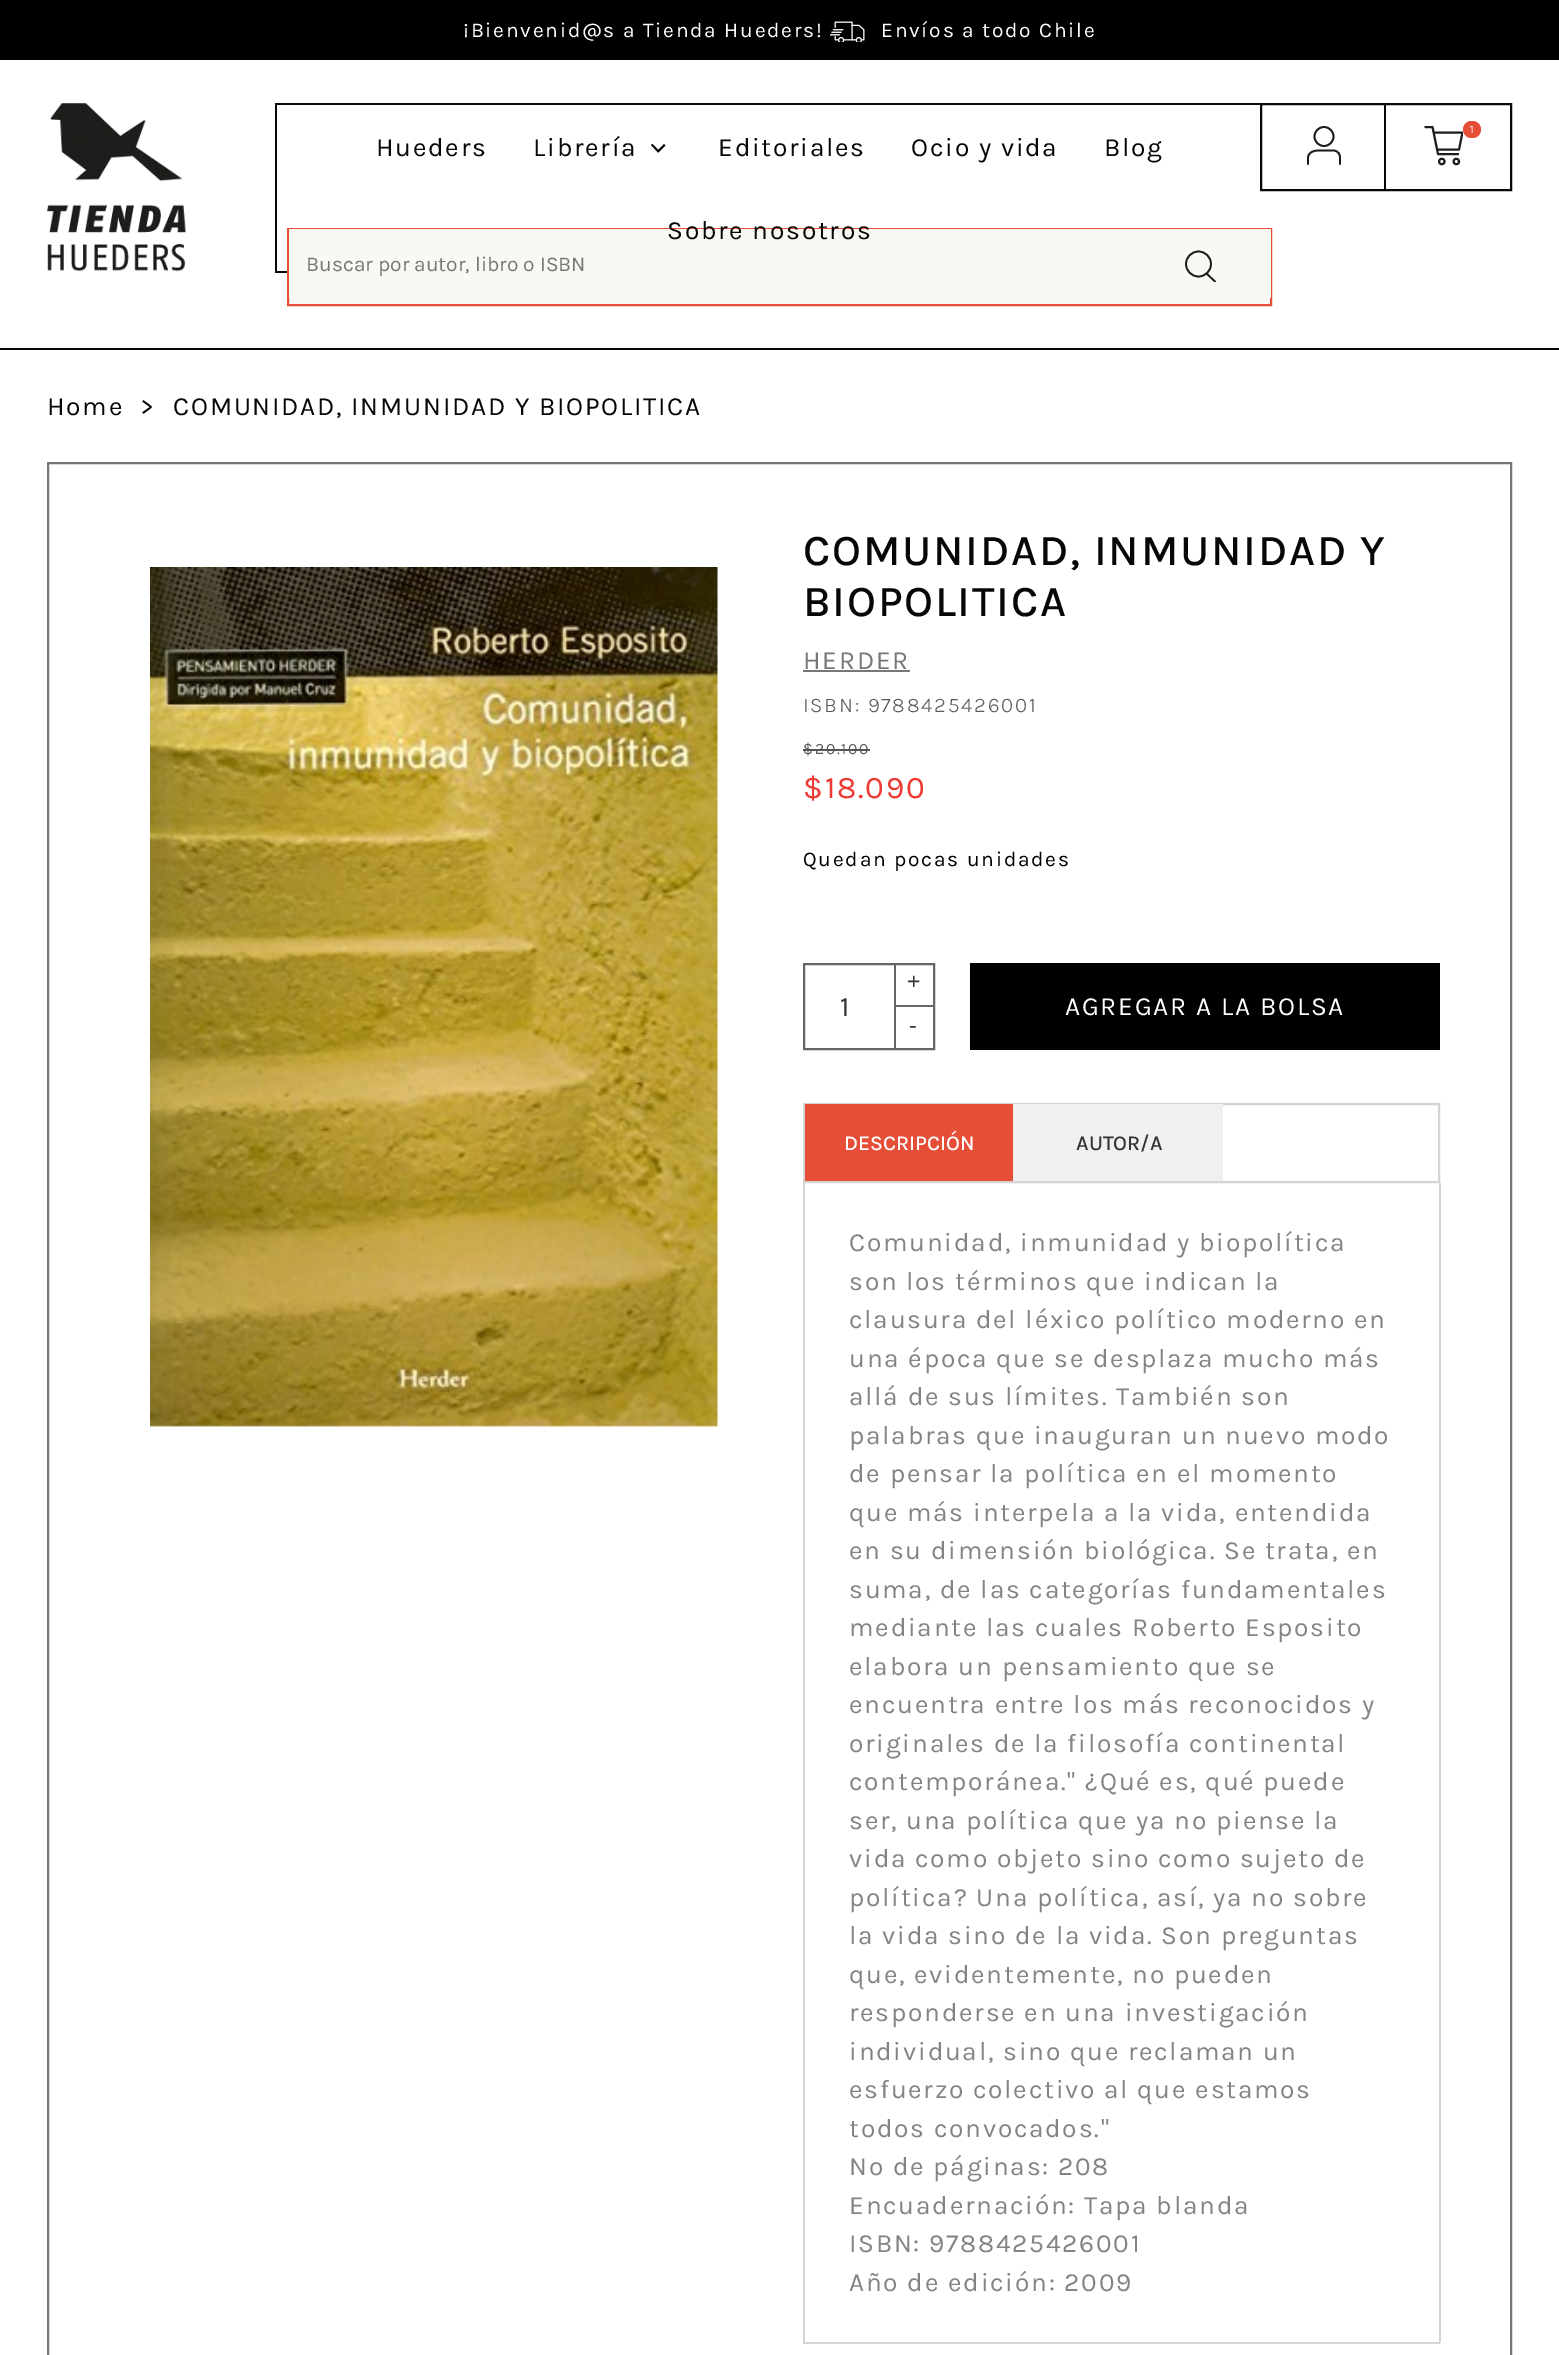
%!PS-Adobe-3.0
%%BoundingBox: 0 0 1559 2355
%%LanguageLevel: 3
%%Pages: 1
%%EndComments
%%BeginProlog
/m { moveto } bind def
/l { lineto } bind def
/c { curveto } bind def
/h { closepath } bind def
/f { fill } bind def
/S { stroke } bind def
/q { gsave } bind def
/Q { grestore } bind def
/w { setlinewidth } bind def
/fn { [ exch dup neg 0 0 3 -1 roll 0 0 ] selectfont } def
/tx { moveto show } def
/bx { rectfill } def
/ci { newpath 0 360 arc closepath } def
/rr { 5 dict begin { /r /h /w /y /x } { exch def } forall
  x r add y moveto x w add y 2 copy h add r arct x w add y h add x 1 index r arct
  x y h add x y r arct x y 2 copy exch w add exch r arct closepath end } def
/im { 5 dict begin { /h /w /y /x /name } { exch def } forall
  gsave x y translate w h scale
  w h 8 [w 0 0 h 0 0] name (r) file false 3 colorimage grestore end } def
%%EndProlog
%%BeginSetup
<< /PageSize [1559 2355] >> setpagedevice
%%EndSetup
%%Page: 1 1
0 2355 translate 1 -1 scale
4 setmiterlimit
1 setgray
0 0 1559 2355 bx
0 setgray
0 0 1559 60 bx
/Karla-Regular 21 fn
1 setgray
463 37 m 1.75 0 (¡Bienvenid@s a Tienda Hueders!) ashow
(image0.raw) 830 21 35 21 im
881 37 m 1.75 0 (Envíos a todo Chile) ashow
0.027 setgray
0 348 1559 2 bx
(image1.raw) 47 103 139 169 im
2 w
1261 104 250 86 rectstroke
1384 105 2 84 bx
0.114 0.114 0.106 setrgbcolor
1.8 w
1324 136.5 9.5 ci S
1 setlinecap
1 setlinejoin
1308 164 m 1308 157.5 l 1308 157.5 1308 150.5 1318.5 150.5 c 1333.5 150.5 l 1333.5 150.5 1340 150.5 1340 157.5 c 1340 164 l S
2 w
1425.5 127 m 1432.5 127 l 1438 154 l 1458 154 l S
0 setlinecap
0 setlinejoin
1441.8 161.5 2.7 ci S
1456.3 161.5 2.7 ci S
q
1425 126 38 39 rectclip
1 setlinecap
1 setlinejoin
1434 132.5 m 1462.5 132.5 l 1459 149.5 l 1437.5 149.5 l S
Q
0.902 0.306 0.216 setrgbcolor
1463 121 18 17 8.5 rr f
/Roboto-Regular 10 fn
1 setgray
1469 133 m 1 0 (1) ashow
0.027 setgray
275 103 985 2 bx
275 271 12 2 bx
275 103 2 170 bx
/Karla-Regular 26.25 fn
376 156 m 1.75 0 (Hueders) ashow
533 156 m 1.75 0 (Librería) ashow
664 144 m 665.5 145.5 l 658.5 152.5 l 657 151 l h f
652.5 144 m 659.5 151 l 658 152.5 l 651 145 l h f
718 156 m 1.75 0 (Editoriales) ashow
911 156 m 1.75 0 (Ocio y vida) ashow
1104 156 m 1.75 0 (Blog) ashow
0.976 0.973 0.957 setrgbcolor
289 298 981 6 bx
0.902 0.306 0.216 setrgbcolor
288 229 983 76 rectstroke
0.976 0.973 0.957 setrgbcolor
289 229 982 69 bx
0.027 setgray
667 239 m 1.75 0 (Sobre nosotros) ashow
/Karla-Regular 21 fn
0.467 setgray
(Buscar por autor, libro o ISBN) 306 271 tx
0.114 0.114 0.106 setrgbcolor
1.7 w
1198.5 264 12.5 ci S
q
1185 250 31 32 rectclip
1 setlinecap
1 setlinejoin
1215.5 282 m 1206.5 273.5 l S
Q
/Karla-Regular 26.25 fn
0.027 setgray
47 415 m 1.75 0 (Home) ashow
140 415 m 1.75 0 (>) ashow
173 415 m 1.75 0 (COMUNIDAD, INMUNIDAD Y BIOPOLITICA) ashow
0.467 setgray
2 w
48 463 1463 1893 rectstroke
(image2.raw) 150 567 568 860 im
/Karla-Medium 43.75 fn
0.027 setgray
803 565 m 1.75 0 (COMUNIDAD, INMUNIDAD Y) ashow
803 616 m 1.75 0 (BIOPOLITICA) ashow
/Karla-Regular 26.25 fn
0.467 setgray
803 669 m 1.75 0 (HERDER) ashow
803 670 107 2 bx
/Karla-Light 21 fn
0.349 setgray
803 712 m 1.75 0 (ISBN: 9788425426001) ashow
/Karla-Regular 15.75 fn
803 754 m 1.75 0 ($20.100) ashow
0.333 setgray
803 749 67 2 bx
/Karla-Regular 31.5 fn
0.929 0.22 0.2 setrgbcolor
803 798 m 1.75 0 ($18.090) ashow
/Karla-Regular 21 fn
0 setgray
803 866 m 1.75 0 (Quedan pocas unidades) ashow
0.4 setgray
804 964 130 85 rectstroke
/Karla-Regular 28 fn
0.2 setgray
(1) 840 1016 tx
0.4 setgray
894 1005 39 2 bx
894 963 2 87 bx
/LiberationSans-Regular 23 fn
0.2 setgray
907 989 m 1.75 0 (+) ashow
909 1033 m 1.75 0 (-) ashow
0 setgray
970 963 470 87 bx
/Karla-Regular 26.25 fn
1 setgray
1065 1015 m 1.75 0 (AGREGAR A LA BOLSA) ashow
0.831 setgray
804 1104 635 78 rectstroke
0.902 0.306 0.216 setrgbcolor
805 1104 208 77 bx
/Karla-Medium 21 fn
1 setgray
(DESCRIPCIÓN) 844 1150 tx
0.941 setgray
1013 1104 210 77 bx
0.2 setgray
(AUTOR/A) 1076 1150 tx
0.831 setgray
1439 1183 2 1160 bx
803 2342 637 2 bx
803 1183 2 1160 bx
/Karla-Regular 26.25 fn
0.514 setgray
849 1251 m 1.75 0 (Comunidad, inmunidad y biopolítica) ashow
849 1290 m 1.75 0 (son los términos que indican la) ashow
849 1328 m 1.75 0 (clausura del léxico político moderno en) ashow
849 1367 m 1.75 0 (una época que se desplaza mucho más) ashow
849 1405 m 1.75 0 (allá de sus límites. También son) ashow
849 1444 m 1.75 0 (palabras que inauguran un nuevo modo) ashow
849 1482 m 1.75 0 (de pensar la política en el momento) ashow
849 1521 m 1.75 0 (que más interpela a la vida, entendida) ashow
849 1559 m 1.75 0 (en su dimensión biológica. Se trata, en) ashow
849 1598 m 1.75 0 (suma, de las categorías fundamentales) ashow
849 1636 m 1.75 0 (mediante las cuales Roberto Esposito) ashow
849 1675 m 1.75 0 (elabora un pensamiento que se) ashow
849 1713 m 1.75 0 (encuentra entre los más reconocidos y) ashow
849 1752 m 1.75 0 (originales de la filosofía continental) ashow
849 1790 m 1.75 0 (contemporánea." ¿Qué es, qué puede) ashow
849 1829 m 1.75 0 (ser, una política que ya no piense la) ashow
849 1867 m 1.75 0 (vida como objeto sino como sujeto de) ashow
849 1906 m 1.75 0 (política? Una política, así, ya no sobre) ashow
849 1944 m 1.75 0 (la vida sino de la vida. Son preguntas) ashow
849 1983 m 1.75 0 (que, evidentemente, no pueden) ashow
849 2021 m 1.75 0 (responderse en una investigación) ashow
849 2060 m 1.75 0 (individual, sino que reclaman un) ashow
849 2098 m 1.75 0 (esfuerzo colectivo al que estamos) ashow
849 2137 m 1.75 0 (todos convocados.") ashow
849 2175 m 1.75 0 (Nº de páginas: 208) ashow
849 2214 m 1.75 0 (Encuadernación: Tapa blanda) ashow
849 2252 m 1.75 0 (ISBN: 9788425426001) ashow
849 2291 m 1.75 0 (Año de edición: 2009) ashow
showpage
%%EOF
